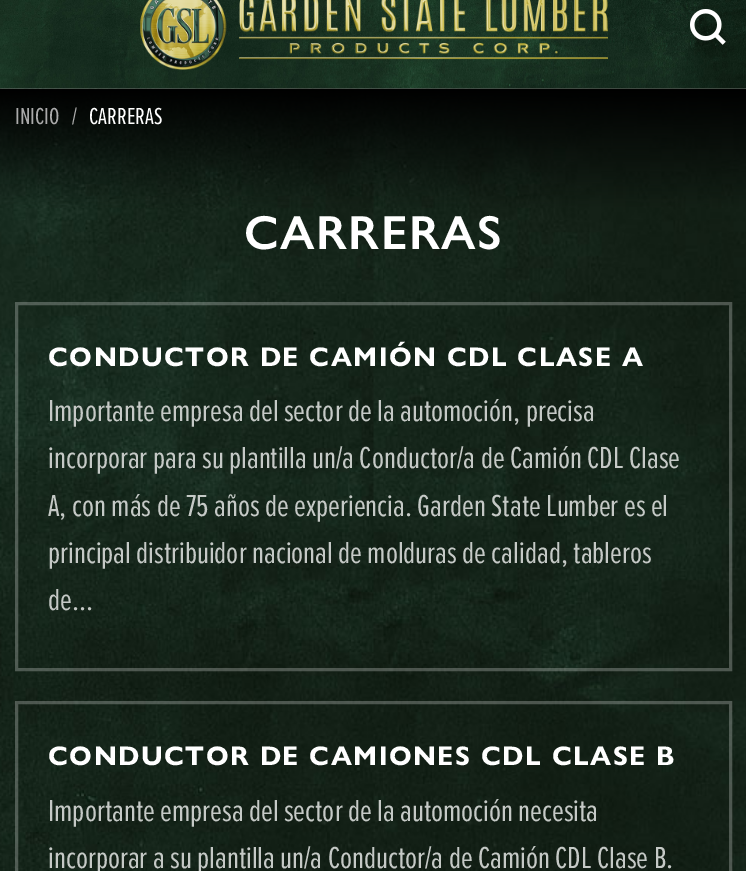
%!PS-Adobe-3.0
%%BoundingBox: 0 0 746 871
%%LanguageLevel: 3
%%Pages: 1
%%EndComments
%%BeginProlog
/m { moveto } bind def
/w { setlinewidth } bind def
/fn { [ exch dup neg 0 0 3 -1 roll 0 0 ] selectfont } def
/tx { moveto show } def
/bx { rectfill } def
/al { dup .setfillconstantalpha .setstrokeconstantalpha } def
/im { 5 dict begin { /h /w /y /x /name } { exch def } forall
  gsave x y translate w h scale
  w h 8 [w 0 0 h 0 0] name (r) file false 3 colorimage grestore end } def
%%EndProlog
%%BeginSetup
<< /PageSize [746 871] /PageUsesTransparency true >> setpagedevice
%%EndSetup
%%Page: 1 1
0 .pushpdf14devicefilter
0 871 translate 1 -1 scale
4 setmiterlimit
1 setgray
0 0 746 871 bx
(image0.raw) 0 0 746 88 im
(image1.raw) 140 0 468 70 im
(image2.raw) 690 9 36 36 im
(image3.raw) 0 88 746 783 im
/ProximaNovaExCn-Regular 24 fn
0.667 setgray
(INICIO) 15 124 tx
(/) 72 124 tx
1 setgray
(CARRERAS) 89 124 tx
/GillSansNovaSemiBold-SemiBold 48 fn
244 249 m 1.5 0 (CARRERAS) ashow
0.25 al
3 w
16.5 303.5 714 366 rectstroke
/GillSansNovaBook-Bold 27 fn
1 al
48 366 m 1.5 0 (CONDUCTOR DE CAMIÓN CDL CLASE A) ashow
/ProximaNovaExCn-Regular 31.5 fn
0.773 0.788 0.776 setrgbcolor
(Importante empresa del sector de la automoción, precisa) 48 421 tx
(incorporar para su plantilla un/a Conductor/a de Camión CDL Clase) 48 468 tx
(A, con más de 75 años de experiencia. Garden State Lumber es el) 48 516 tx
(principal distribuidor nacional de molduras de calidad, tableros) 48 563 tx
(de...) 48 610 tx
0.25 al
1 setgray
16.5 702.5 714 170 rectstroke
/GillSansNovaBook-Bold 27 fn
1 al
48 765 m 1.5 0 (CONDUCTOR DE CAMIONES CDL CLASE B) ashow
/ProximaNovaExCn-Regular 31.5 fn
0.773 0.788 0.776 setrgbcolor
(Importante empresa del sector de la automoción necesita) 48 821 tx
(incorporar a su plantilla un/a Conductor/a de Camión CDL Clase B.) 48 868 tx
.poppdf14devicefilter showpage
%%EOF
